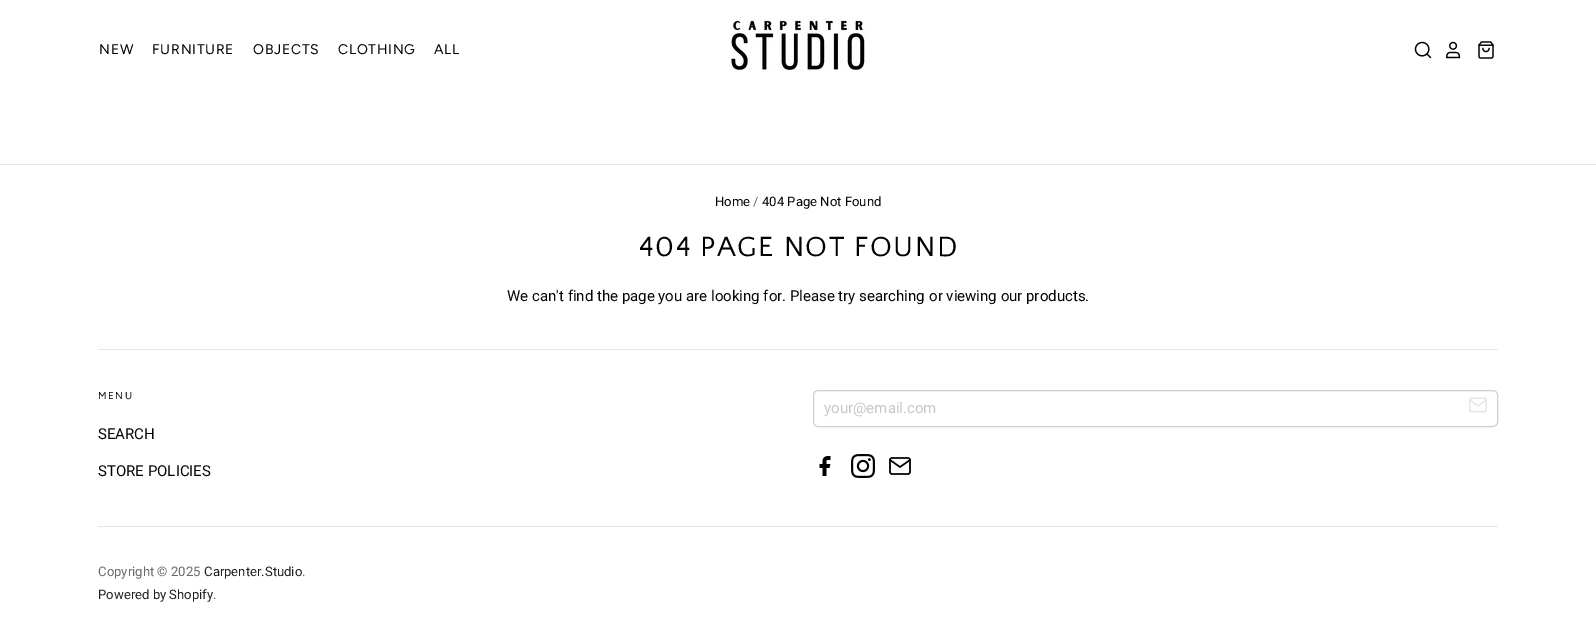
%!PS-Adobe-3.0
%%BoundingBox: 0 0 1596 630
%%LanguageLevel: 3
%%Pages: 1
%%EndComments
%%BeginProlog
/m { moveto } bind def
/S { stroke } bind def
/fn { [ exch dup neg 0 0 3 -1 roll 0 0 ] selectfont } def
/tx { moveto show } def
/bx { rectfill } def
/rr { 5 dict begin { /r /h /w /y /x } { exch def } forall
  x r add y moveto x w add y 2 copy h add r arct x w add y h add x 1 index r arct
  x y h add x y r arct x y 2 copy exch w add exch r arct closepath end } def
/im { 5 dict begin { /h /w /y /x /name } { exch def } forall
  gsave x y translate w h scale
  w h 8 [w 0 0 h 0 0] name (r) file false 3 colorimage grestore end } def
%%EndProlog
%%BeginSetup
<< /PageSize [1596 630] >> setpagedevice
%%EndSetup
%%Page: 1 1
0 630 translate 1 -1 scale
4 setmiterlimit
1 setgray
0 0 1596 630 bx
0.898 setgray
0 164 1596 1 bx
/Figtree-Regular 14 fn
0 setgray
99 54 m 0.75 0 (NEW) ashow
152 54 m 0.75 0 (FURNITURE) ashow
253 54 m 0.75 0 (OBJECTS) ashow
338 54 m 0.75 0 (CLOTHING) ashow
434 54 m 0.75 0 (ALL) ashow
(image0.raw) 730 18 136 54 im
(image1.raw) 1414 41 18 18 im
(image2.raw) 1446 41 15 18 im
(image3.raw) 1478 41 16 18 im
/Roboto-Regular 13.1 fn
(Home) 715 206 tx
0.416 setgray
(/) 753 206 tx
0.024 setgray
(404 Page Not Found) 762 206 tx
/QuattrocentoSans-Regular 29 fn
0 setgray
639 256 m 1.5 0 (404 PAGE NOT FOUND) ashow
/Roboto-Regular 15 fn
0.024 setgray
(We can't find the page you are looking for. Please try) 507 301 tx
0 setgray
(searching) 859 301 tx
0.024 setgray
(or viewing our) 929 301 tx
0 setgray
(products) 1026 301 tx
0.024 setgray
(.) 1085 301 tx
0.898 setgray
98 349 1400 1 bx
/Figtree-Regular 10 fn
0 setgray
98 399 m 1.5 0 (MENU) ashow
/Roboto-Regular 15 fn
0.024 setgray
(SEARCH) 98 439 tx
(STORE POLICIES) 98 476 tx
0.816 setgray
813.5 390.5 684 36 4.5 rr S
0.784 setgray
(your@email.com) 824 413 tx
(image4.raw) 1469 397 18 16 im
(image5.raw) 819 456 12 20 im
(image6.raw) 851 454 24 24 im
(image7.raw) 889 457 22 18 im
0.898 setgray
98 526 1400 1 bx
/Roboto-Regular 13.1 fn
0.416 setgray
(Copyright © 2025) 98 576 tx
0.122 setgray
(Carpenter.Studio) 204 576 tx
0.416 setgray
(.) 302 576 tx
0.122 setgray
(Powered by Shopify) 98 599 tx
0.416 setgray
(.) 213 599 tx
showpage
%%EOF
